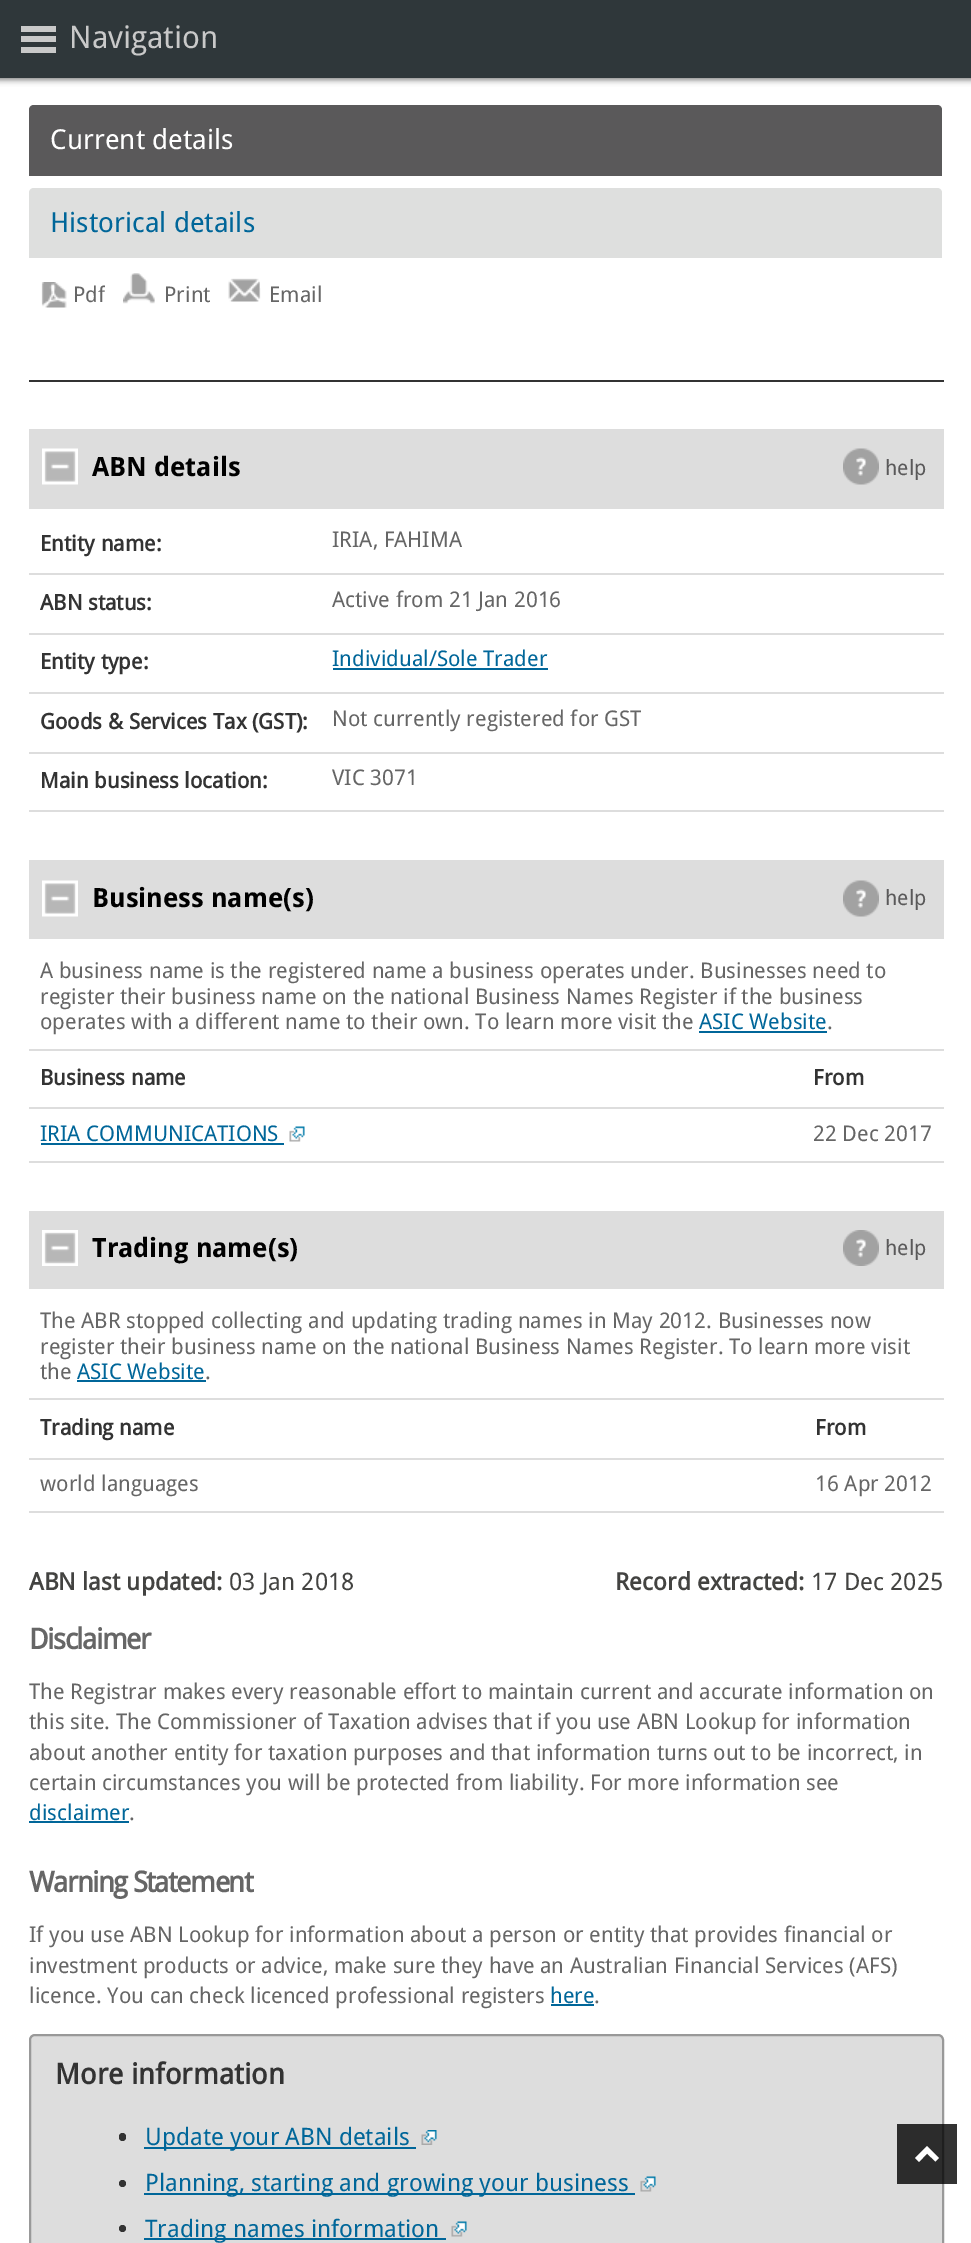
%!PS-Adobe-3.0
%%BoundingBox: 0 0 971 2243
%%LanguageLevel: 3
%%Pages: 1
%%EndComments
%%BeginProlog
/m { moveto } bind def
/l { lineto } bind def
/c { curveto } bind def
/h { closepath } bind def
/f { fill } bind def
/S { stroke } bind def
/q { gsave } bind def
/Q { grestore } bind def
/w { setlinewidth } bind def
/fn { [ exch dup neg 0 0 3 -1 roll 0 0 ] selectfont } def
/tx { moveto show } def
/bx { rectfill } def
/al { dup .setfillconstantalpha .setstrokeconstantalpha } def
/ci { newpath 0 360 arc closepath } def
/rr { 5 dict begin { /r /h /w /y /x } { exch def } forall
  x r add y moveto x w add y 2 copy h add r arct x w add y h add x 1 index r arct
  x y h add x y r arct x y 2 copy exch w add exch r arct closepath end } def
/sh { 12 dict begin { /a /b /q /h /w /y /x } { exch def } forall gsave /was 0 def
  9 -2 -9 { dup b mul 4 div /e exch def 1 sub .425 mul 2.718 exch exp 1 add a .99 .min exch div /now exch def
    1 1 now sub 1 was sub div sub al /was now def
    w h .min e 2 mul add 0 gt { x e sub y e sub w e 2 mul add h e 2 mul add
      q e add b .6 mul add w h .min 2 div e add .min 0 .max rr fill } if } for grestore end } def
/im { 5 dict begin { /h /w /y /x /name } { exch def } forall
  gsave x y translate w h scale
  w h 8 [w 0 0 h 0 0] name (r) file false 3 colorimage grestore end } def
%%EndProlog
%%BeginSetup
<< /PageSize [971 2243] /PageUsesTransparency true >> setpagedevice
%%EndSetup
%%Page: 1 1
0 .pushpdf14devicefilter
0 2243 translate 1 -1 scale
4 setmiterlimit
1 setgray
0 0 971 2243 bx
0 setgray
-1 2 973 78 0 3 0.5 sh
0.184 0.216 0.227 setrgbcolor
0 0 971 78 bx
0.788 setgray
21 26 35 6 bx
21 36 35 6 bx
21 47 35 6 bx
/DroidSans-Regular 31 fn
(Navigation) 69 48 tx
0.2 setgray
29 380 915 2 bx
0.353 0.349 0.353 setrgbcolor
34 105 m 937 105 l 940 105 942 107 942 110 c 942 176 l 29 176 l 29 110 l 29 107 31 105 34 105 c h f
/DroidSans-Regular 27.5 fn
1 setgray
(Current details) 50 149 tx
0.871 0.875 0.871 setrgbcolor
34 188 m 937 188 l 940 188 942 190 942 193 c 942 258 l 29 258 l 29 193 l 29 190 31 188 34 188 c h f
0 0.4 0.6 setrgbcolor
(Historical details) 50 232 tx
(image0.raw) 41 282 26 26 im
q
35 282 70 26 rectclip
/DroidSans-Regular 21.6 fn
0.4 setgray
(Pdf) 73 302 tx
Q
(image1.raw) 123 273 32 31 im
/DroidSans-Regular 21.6 fn
0.4 setgray
(Print) 164 302 tx
(image2.raw) 228 278 33 24 im
(Email) 269 302 tx
0.867 setgray
29 429 915 80 bx
(image3.raw) 42 448 36 37 im
/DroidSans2-Bold 26.5 fn
0 setgray
(ABN details) 92 476 tx
(image4.raw) 843 448 36 37 im
/DroidSans-Regular 21 fn
0.353 0.349 0.353 setrgbcolor
(help) 885 475 tx
/DroidSans-Bold 21.6 fn
0.2 setgray
(Entity name:) 40 551 tx
0.867 setgray
29 573 915 2 bx
/DroidSans-Regular 21.6 fn
0.4 setgray
(IRIA, FAHIMA) 332 547 tx
/DroidSans-Bold 21.6 fn
0.2 setgray
(ABN status:) 40 610 tx
0.867 setgray
29 633 915 2 bx
/DroidSans-Regular 21.6 fn
0.4 setgray
(Active from 21 Jan 2016) 332 607 tx
/DroidSans-Bold 21.6 fn
0.2 setgray
(Entity type:) 40 669 tx
0.867 setgray
29 692 915 2 bx
/DroidSans-Regular 21.6 fn
0 0.4 0.6 setrgbcolor
(Individual/Sole Trader) 332 666 tx
333 668 215 2 bx
/DroidSans-Bold 21.6 fn
0.2 setgray
(Goods & Services Tax \(GST\):) 40 729 tx
0.867 setgray
29 752 915 2 bx
/DroidSans-Regular 21.6 fn
0.4 setgray
(Not currently registered for GST) 332 726 tx
/DroidSans-Bold 21.6 fn
0.2 setgray
(Main business location:) 40 788 tx
0.867 setgray
29 810 915 2 bx
/DroidSans-Regular 21.6 fn
0.4 setgray
(VIC 3071) 332 785 tx
0.867 setgray
29 860 915 79 bx
(image3.raw) 42 880 36 37 im
/DroidSans2-Bold 26.5 fn
0 setgray
(Business name\(s\)) 92 907 tx
(image4.raw) 843 880 36 37 im
/DroidSans-Regular 21 fn
0.353 0.349 0.353 setrgbcolor
(help) 885 905 tx
0.867 setgray
29 1049 915 2 bx
/DroidSans-Regular 21.6 fn
0.4 setgray
(A business name is the registered name a business operates under. Businesses need to) 40 978 tx
(register their business name on the national Business Names Register if the business) 40 1004 tx
(operates with a different name to their own. To learn more visit the) 40 1029 tx
0 0.4 0.6 setrgbcolor
(ASIC Website) 699 1029 tx
0.4 setgray
(.) 827 1029 tx
0 0.4 0.6 setrgbcolor
699 1031 128 2 bx
/DroidSans-Bold 21.6 fn
0.2 setgray
(Business name) 40 1085 tx
0.867 setgray
29 1107 915 2 bx
0.2 setgray
(From) 813 1085 tx
/DroidSans-Regular 21.6 fn
0 0.4 0.6 setrgbcolor
(IRIA COMMUNICATIONS) 40 1141 tx
41 1143 243 2 bx
(image5.raw) 289 1126 16 16 im
0.867 setgray
29 1161 915 2 bx
0.4 setgray
(22 Dec 2017) 813 1141 tx
0.867 setgray
29 1211 915 78 bx
(image6.raw) 42 1230 36 36 im
/DroidSans2-Bold 26.5 fn
0 setgray
(Trading name\(s\)) 92 1257 tx
(image7.raw) 843 1230 36 36 im
/DroidSans-Regular 21 fn
0.353 0.349 0.353 setrgbcolor
(help) 885 1255 tx
0.867 setgray
29 1398 915 2 bx
/DroidSans-Regular 21.6 fn
0.4 setgray
(The ABR stopped collecting and updating trading names in May 2012. Businesses now) 40 1328 tx
(register their business name on the national Business Names Register.) 40 1354 tx
(To learn more visit) 729 1354 tx
(the) 40 1379 tx
0 0.4 0.6 setrgbcolor
(ASIC Website) 77 1379 tx
0.4 setgray
(.) 205 1379 tx
0 0.4 0.6 setrgbcolor
77 1380 129 2 bx
/DroidSans-Bold 21.6 fn
0.2 setgray
(Trading name) 40 1435 tx
0.867 setgray
29 1458 915 2 bx
0.2 setgray
(From) 815 1435 tx
/DroidSans-Regular 21.6 fn
0.4 setgray
(world languages) 40 1491 tx
0.867 setgray
29 1511 915 2 bx
0.4 setgray
(16 Apr 2012) 815 1491 tx
/DroidSans-Bold 24 fn
0.263 0.263 0.255 setrgbcolor
(ABN last updated:) 29 1590 tx
/DroidSans-Regular 24 fn
(03 Jan 2018) 229 1590 tx
/DroidSans-Bold 24 fn
(Record extracted:) 615 1590 tx
/DroidSans-Regular 24 fn
(17 Dec 2025) 811 1590 tx
/DroidSans-Bold 28.75 fn
0.4 setgray
29 1649 m -1.5 0 (Disclaimer) ashow
/DroidSans-Regular 21.6 fn
(The Registrar makes every reasonable effort to maintain current and accurate information on) 29 1699 tx
(this site. The Commissioner of Taxation advises that if you) 29 1729 tx
(use ABN Lookup for information) 597 1729 tx
(about another entity for taxation purposes and that information turns out to be incorrect, in) 29 1760 tx
(certain circumstances you will be protected from liability. For more information see) 29 1790 tx
0 0.4 0.6 setrgbcolor
(disclaimer) 29 1820 tx
29 1821 100 2 bx
0.4 setgray
(.) 129 1820 tx
/DroidSans-Bold 28.75 fn
29 1892 m -1.5 0 (Warning Statement) ashow
/DroidSans-Regular 21.6 fn
(If you use ABN Lookup for information about a person or entity that provides financial or) 29 1942 tx
(investment products or advice, make sure they have) 29 1973 tx
(an Australian Financial Services \(AFS\)) 540 1973 tx
(licence. You can check licenced professional registers) 29 2003 tx
0 0.4 0.6 setrgbcolor
(here) 550 2003 tx
551 2004 43 2 bx
0.4 setgray
(.) 594 2003 tx
0.867 setgray
30 2035 913 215 5 rr q f Q
0.6 setgray
2 w
S
/DroidSans-Bold 28.75 fn
0.2 setgray
(More information) 55 2084 tx
119 2133 7 8 3.5 rr f
0 0.4 0.6 setrgbcolor
144 2147 272 2 bx
/DroidSans-Regular 24 fn
(Update your ABN details) 145 2145 tx
(image8.raw) 421 2130 16 15 im
0.2 setgray
122.5 2183.5 3.5 ci f
0 0.4 0.6 setrgbcolor
144 2193 491 2 bx
(Planning, starting and growing your business) 145 2191 tx
(image9.raw) 640 2176 16 16 im
0.2 setgray
122.5 2228.5 3.5 ci f
0 0.4 0.6 setrgbcolor
144 2238 302 2 bx
(Trading names information) 145 2237 tx
(image10.raw) 451 2221 16 16 im
0.8 al
0 setgray
897 2124 60 60 bx
1 al
1 setgray
927 2146 m 939 2158 l 935.5 2161.5 l 927 2153.5 l 919 2162 l 915 2158 l h f
.poppdf14devicefilter showpage
%%EOF
